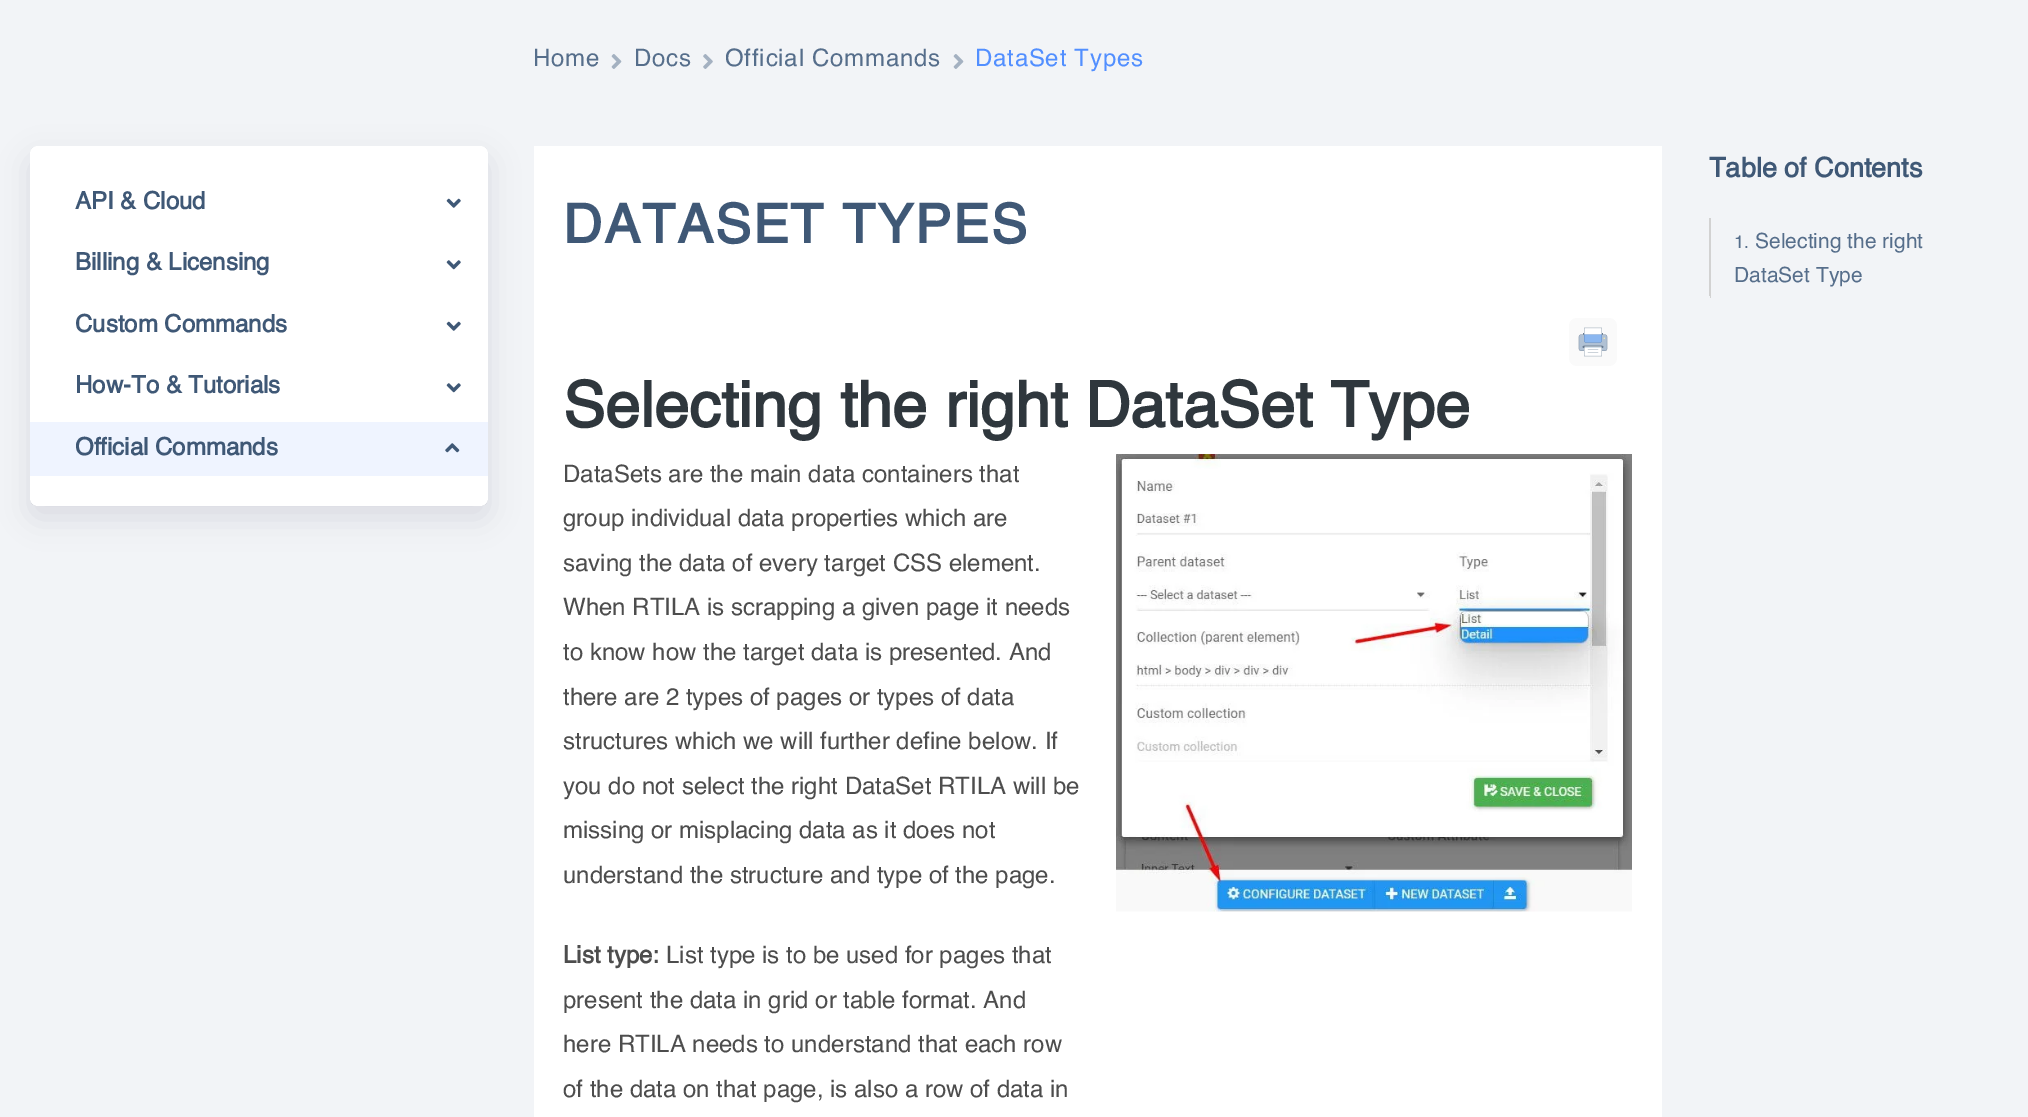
%!PS-Adobe-3.0
%%BoundingBox: 0 0 2028 1117
%%LanguageLevel: 3
%%Pages: 1
%%EndComments
%%BeginProlog
/m { moveto } bind def
/f { fill } bind def
/q { gsave } bind def
/Q { grestore } bind def
/fn { [ exch dup neg 0 0 3 -1 roll 0 0 ] selectfont } def
/tx { moveto show } def
/bx { rectfill } def
/al { dup .setfillconstantalpha .setstrokeconstantalpha } def
/rr { 5 dict begin { /r /h /w /y /x } { exch def } forall
  x r add y moveto x w add y 2 copy h add r arct x w add y h add x 1 index r arct
  x y h add x y r arct x y 2 copy exch w add exch r arct closepath end } def
/sh { 12 dict begin { /a /b /q /h /w /y /x } { exch def } forall gsave /was 0 def
  9 -2 -9 { dup b mul 4 div /e exch def 1 sub .425 mul 2.718 exch exp 1 add a .99 .min exch div /now exch def
    1 1 now sub 1 was sub div sub al /was now def
    w h .min e 2 mul add 0 gt { x e sub y e sub w e 2 mul add h e 2 mul add
      q e add b .6 mul add w h .min 2 div e add .min 0 .max rr fill } if } for grestore end } def
/im { 5 dict begin { /h /w /y /x /name } { exch def } forall
  gsave x y translate w h scale
  w h 8 [w 0 0 h 0 0] name (r) file false 3 colorimage grestore end } def
%%EndProlog
%%BeginSetup
<< /PageSize [2028 1117] /PageUsesTransparency true >> setpagedevice
%%EndSetup
%%Page: 1 1
0 .pushpdf14devicefilter
0 1117 translate 1 -1 scale
4 setmiterlimit
0.949 0.957 0.969 setrgbcolor
0 0 2028 1117 bx
0 0.004 0.137 setrgbcolor
30 158 458 360 8 15 0.1 sh
q
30 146 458 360 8 rr clip newpath
30 158 458 360 8 15 0.1 sh
Q
1 setgray
30 146 458 360 8 rr f
/Helvetica-Bold 24 fn
0.247 0.345 0.463 setrgbcolor
(API & Cloud) 75 209 tx
(image0.raw) 446 198 15 10 im
(Billing & Licensing) 75 270 tx
(image1.raw) 446 260 15 10 im
(Custom Commands) 75 332 tx
(image0.raw) 446 321 15 10 im
(How-To & Tutorials) 75 393 tx
(image1.raw) 446 383 15 10 im
0.937 0.957 1 setrgbcolor
30 422 458 54 bx
0.247 0.345 0.463 setrgbcolor
(Official Commands) 75 455 tx
(image2.raw) 445 443 15 10 im
1 setgray
534 146 1128 971 bx
/Helvetica-Regular 24 fn
0.337 0.431 0.545 setrgbcolor
533 66 m 0.8 0 (Home) ashow
(image3.raw) 611 54 11 15 im
634 66 m 0.8 0 (Docs) ashow
(image4.raw) 703 54 10 15 im
725 66 m 0.8 0 (Official Commands) ashow
(image3.raw) 953 54 11 15 im
0.322 0.561 1 setrgbcolor
975 66 m 0.75 0 (DataSet Types) ashow
/Helvetica-Bold 54 fn
0.247 0.345 0.463 setrgbcolor
563 243 m 1.9 0 (DATASET TYPES) ashow
0.98 setgray
1569 318 48 48 8 rr f
(image5.raw) 1578 327 30 30 im
/Helvetica-Bold 63 fn
0.184 0.216 0.239 setrgbcolor
(Selecting the right DataSet Type) 563 427 tx
/Helvetica-Regular 24 fn
0.302 setgray
(DataSets are the main data containers that) 563 482 tx
(group individual data properties which are) 563 526 tx
(saving the data of every target CSS element.) 563 571 tx
(When RTILA is scrapping a given page it needs) 563 615 tx
(to know how the target data is presented. And) 563 660 tx
(there are 2 types of pages or types of data) 563 705 tx
(structures which we will further define below. If) 563 749 tx
(you do not select the right DataSet RTILA will be) 563 794 tx
(missing or misplacing data as it does not) 563 838 tx
(understand the structure and type of the page.) 563 883 tx
/Helvetica-Bold 24 fn
(List type:) 563 963 tx
/Helvetica-Regular 24 fn
(List type is to be used for pages that) 666 963 tx
(present the data in grid or table format. And) 563 1008 tx
(here RTILA needs to understand that each row) 563 1052 tx
(of the data on that page, is also a row of data in) 563 1097 tx
(image6.raw) 1116 454 516 458 im
/Helvetica-Bold 27 fn
0.247 0.345 0.463 setrgbcolor
(Table of Contents) 1709 177 tx
q
1709 146 289 154 8 rr clip newpath
0.824 setgray
1709 218 2 82 bx
Q
/Helvetica-Regular 18 fn
0.337 0.431 0.545 setrgbcolor
(1.) 1734 248 tx
/Helvetica-Regular 21 fn
(Selecting the right) 1755 248 tx
(DataSet Type) 1734 282 tx
.poppdf14devicefilter showpage
%%EOF
